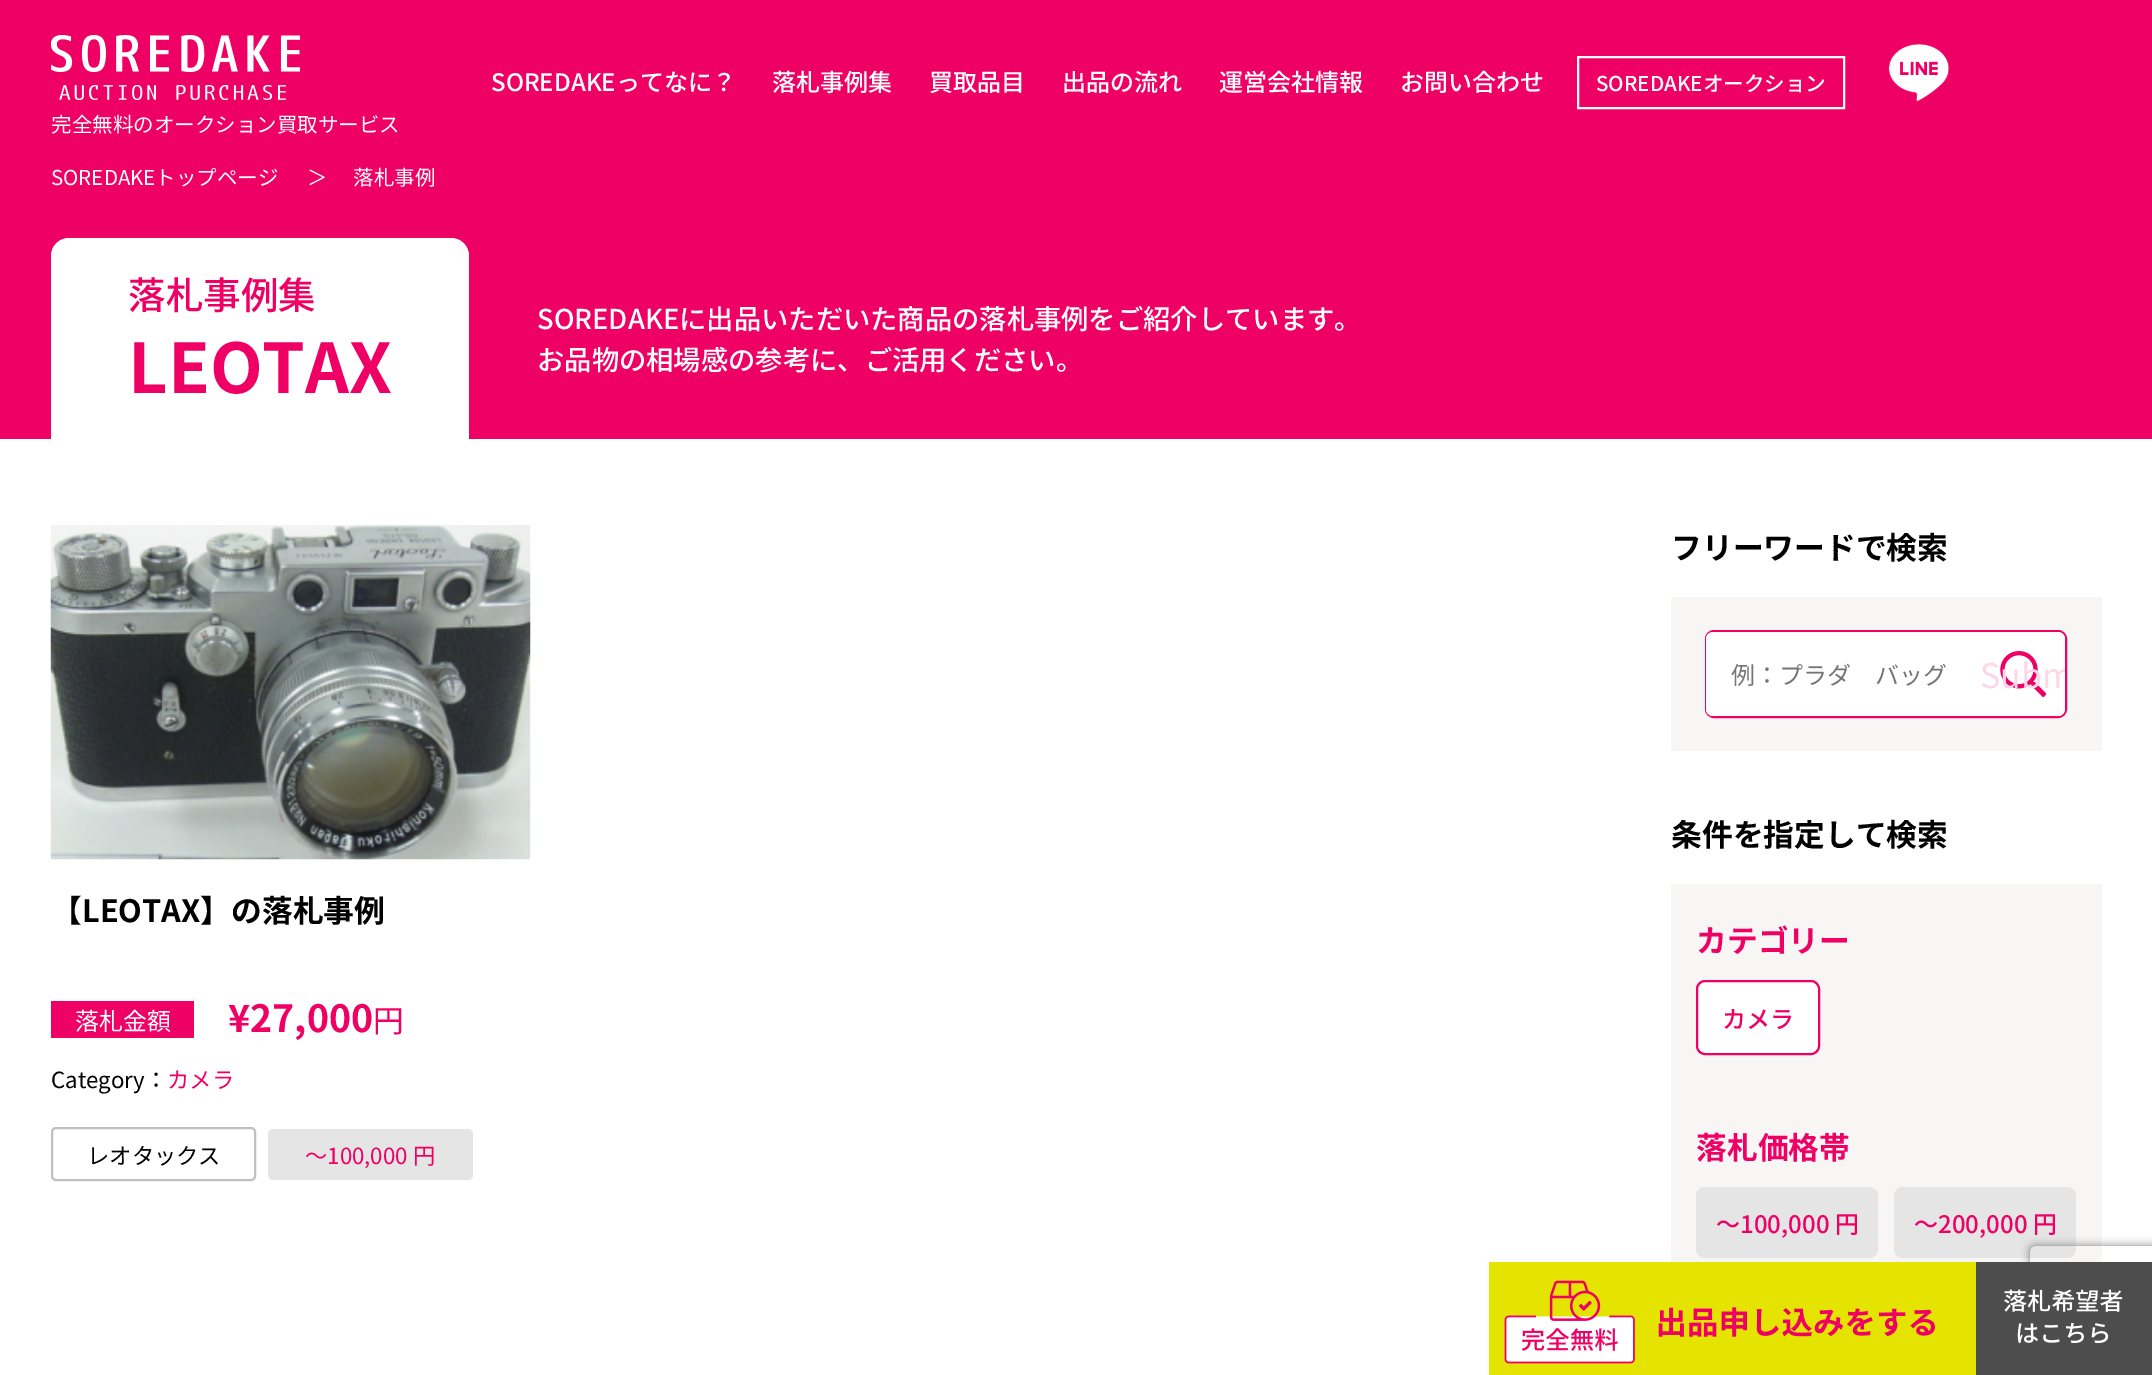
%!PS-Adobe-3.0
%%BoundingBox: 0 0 2152 1375
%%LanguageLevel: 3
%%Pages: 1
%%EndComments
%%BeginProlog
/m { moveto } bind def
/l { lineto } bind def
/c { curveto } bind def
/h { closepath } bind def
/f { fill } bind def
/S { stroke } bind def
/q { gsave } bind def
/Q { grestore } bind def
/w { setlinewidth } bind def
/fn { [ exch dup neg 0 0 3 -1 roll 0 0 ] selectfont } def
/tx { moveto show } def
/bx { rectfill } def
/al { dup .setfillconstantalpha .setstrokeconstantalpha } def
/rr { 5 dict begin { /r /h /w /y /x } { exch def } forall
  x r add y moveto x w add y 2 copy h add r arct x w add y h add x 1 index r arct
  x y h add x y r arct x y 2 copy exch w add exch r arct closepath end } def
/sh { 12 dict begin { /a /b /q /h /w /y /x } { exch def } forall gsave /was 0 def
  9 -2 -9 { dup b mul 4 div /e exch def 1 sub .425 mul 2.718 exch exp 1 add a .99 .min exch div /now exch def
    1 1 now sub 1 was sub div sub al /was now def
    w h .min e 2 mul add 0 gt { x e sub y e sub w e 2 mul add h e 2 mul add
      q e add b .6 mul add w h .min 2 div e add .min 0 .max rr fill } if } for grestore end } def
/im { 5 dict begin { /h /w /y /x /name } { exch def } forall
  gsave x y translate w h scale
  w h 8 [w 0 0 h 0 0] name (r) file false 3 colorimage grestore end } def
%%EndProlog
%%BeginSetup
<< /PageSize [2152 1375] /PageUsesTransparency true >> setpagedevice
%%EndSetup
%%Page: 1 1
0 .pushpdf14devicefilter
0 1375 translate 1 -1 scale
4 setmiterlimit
1 setgray
0 0 2152 1375 bx
0.933 0 0.392 setrgbcolor
0 0 2152 439 bx
/NotoSansJP-Medium 24 fn
1 setgray
(SOREDAKEってなに？) 491 91 tx
(落札事例集) 772 91 tx
(買取品目) 929 91 tx
(出品の流れ) 1062 91 tx
(運営会社情報) 1219 91 tx
(お問い合わせ) 1400 91 tx
2 w
1578 57 266 51 rectstroke
/NotoSansJP-Medium 20.5 fn
(SOREDAKEオークション) 1596 91 tx
(image0.raw) 1489 1262 487 113 im
0.973 0.961 0.961 setrgbcolor
1671 884 431 378 bx
0.902 0.898 0.898 setrgbcolor
1894 1187 182 71 9 rr f
q
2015 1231 m 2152 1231 l 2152 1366 l 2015 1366 l h 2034 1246 m 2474 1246 l 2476 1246 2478 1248 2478 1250 c 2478 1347 l 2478 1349 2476 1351 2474 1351 c 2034 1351 l 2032 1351 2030 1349 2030 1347 c 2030 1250 l 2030 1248 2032 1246 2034 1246 c h eoclip newpath
0.502 setgray
2030 1246 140 105 4 4.5 1 sh
Q
0.302 setgray
1976 1262 176 113 bx
(image1.raw) 2004 1289 119 55 im
(image2.raw) 1888 44 61 58 im
(image3.raw) 51 35 250 65 im
/NotoSansJP-Regular 20.5 fn
1 setgray
(完全無料のオークション買取サービス) 51 132 tx
(SOREDAKEトップページ) 51 185 tx
(＞) 307 185 tx
(落札事例) 353 185 tx
69 238 m 451 238 l 461 238 469 246 469 256 c 469 439 l 51 439 l 51 256 l 51 246 59 238 69 238 c h f
/NotoSansJP-Medium 37.5 fn
0.933 0 0.392 setrgbcolor
(落札事例集) 128 309 tx
/NotoSansJP-Bold 68.5 fn
(LEOTAX) 128 393 tx
/NotoSansJP-Medium 27.3 fn
1 setgray
(SOREDAKEに出品いただいた商品の落札事例をご紹介しています。) 537 329 tx
(お品物の相場感の参考に、ご活用ください。) 537 370 tx
(image4.raw) 50 525 481 335 im
/NotoSansJP-Bold 30.75 fn
0 setgray
(【LEOTAX】の落札事例) 51 922 tx
0.933 0 0.392 setrgbcolor
51 1001 143 37 bx
/NotoSansJP-Regular 24 fn
1 setgray
(落札金額) 75 1030 tx
/NotoSansJP-Bold 37.5 fn
0.933 0 0.392 setrgbcolor
(¥27,000) 228 1032 tx
/NotoSansJP-Regular 30.75 fn
(円) 373 1032 tx
/NotoSansJP-Regular 22.25 fn
0 setgray
(Category：) 51 1088 tx
0.933 0 0.392 setrgbcolor
(カメラ) 167 1088 tx
0.757 0.753 0.753 setrgbcolor
52 1128 203 52 4 rr S
0 setgray
(レオタックス) 87 1164 tx
0.902 0.898 0.898 setrgbcolor
268 1129 205 51 5 rr f
0.933 0 0.392 setrgbcolor
(～100,000 円) 305 1164 tx
/NotoSansJP-Bold 30.75 fn
0 setgray
(フリーワードで検索) 1671 559 tx
0.973 0.961 0.961 setrgbcolor
1671 597 431 154 bx
0.933 0 0.392 setrgbcolor
1706 631 360 86 8 rr S
1 setgray
1713 632 m 1979 632 l 1979 716 l 1713 716 l 1709 716 1706 713 1706 709 c 1706 639 l 1706 635 1709 632 1713 632 c h f
/NotoSansJP-Regular 24 fn
0.459 setgray
(例：プラダ　バッグ) 1731 684 tx
1 setgray
1979 632 m 2058 632 l 2062 632 2065 635 2065 639 c 2065 709 l 2065 713 2062 716 2058 716 c 1979 716 l h f
(image5.raw) 2000 651 46 46 im
q
1979 632 86 84 rectclip
/NotoSansJP-Regular 34 fn
0.988 0.847 0.906 setrgbcolor
(Subm) 1980 688 tx
Q
/NotoSansJP-Bold 30.75 fn
0 setgray
(条件を指定して検索) 1671 846 tx
0.933 0 0.392 setrgbcolor
(カテゴリー) 1696 952 tx
1 setgray
1697 981 122 73 8 rr q f Q
0.933 0 0.392 setrgbcolor
S
/NotoSansJP-Medium 24 fn
(カメラ) 1722 1028 tx
/NotoSansJP-Bold 30.75 fn
(落札価格帯) 1696 1159 tx
0.902 0.898 0.898 setrgbcolor
1696 1187 182 71 9 rr f
/NotoSansJP-Medium 24 fn
0.933 0 0.392 setrgbcolor
(～100,000 円) 1716 1233 tx
(～200,000 円) 1914 1233 tx
.poppdf14devicefilter showpage
%%EOF
